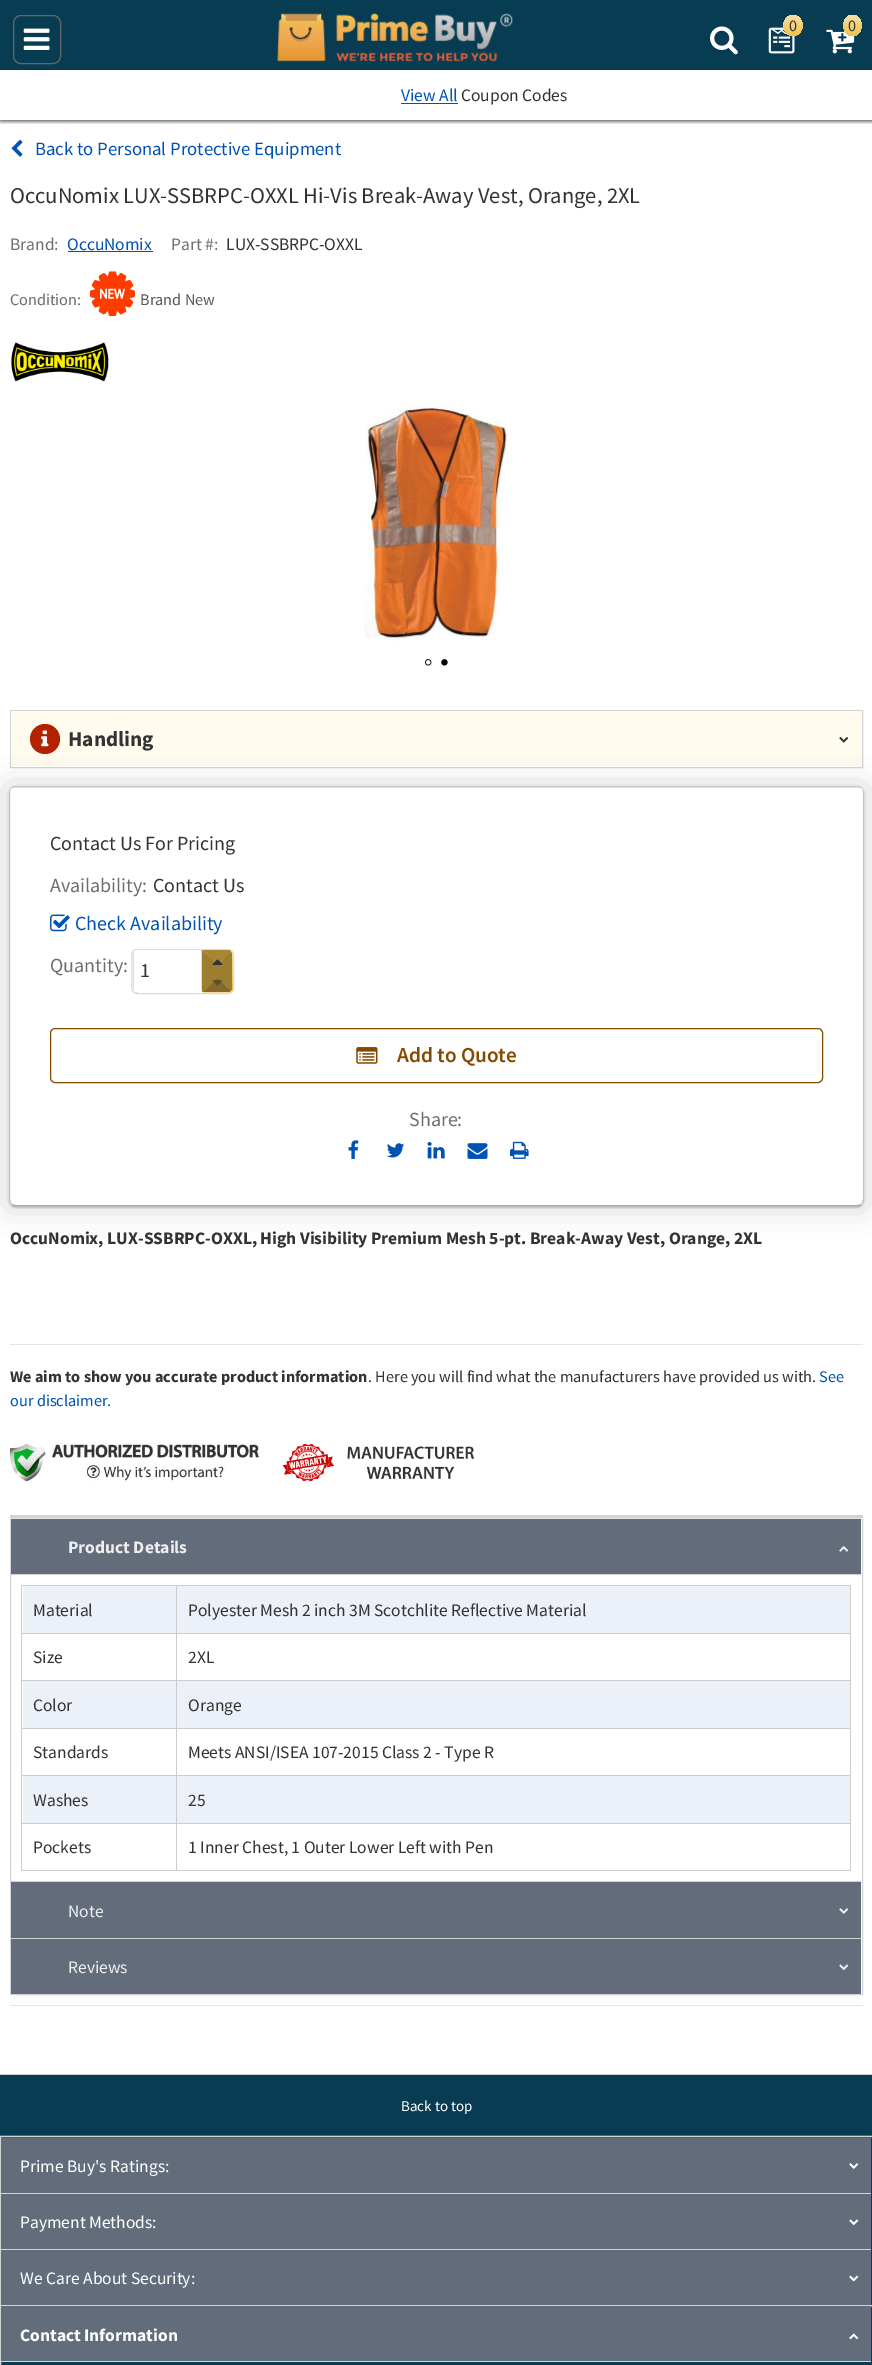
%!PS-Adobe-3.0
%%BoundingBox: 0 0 872 2365
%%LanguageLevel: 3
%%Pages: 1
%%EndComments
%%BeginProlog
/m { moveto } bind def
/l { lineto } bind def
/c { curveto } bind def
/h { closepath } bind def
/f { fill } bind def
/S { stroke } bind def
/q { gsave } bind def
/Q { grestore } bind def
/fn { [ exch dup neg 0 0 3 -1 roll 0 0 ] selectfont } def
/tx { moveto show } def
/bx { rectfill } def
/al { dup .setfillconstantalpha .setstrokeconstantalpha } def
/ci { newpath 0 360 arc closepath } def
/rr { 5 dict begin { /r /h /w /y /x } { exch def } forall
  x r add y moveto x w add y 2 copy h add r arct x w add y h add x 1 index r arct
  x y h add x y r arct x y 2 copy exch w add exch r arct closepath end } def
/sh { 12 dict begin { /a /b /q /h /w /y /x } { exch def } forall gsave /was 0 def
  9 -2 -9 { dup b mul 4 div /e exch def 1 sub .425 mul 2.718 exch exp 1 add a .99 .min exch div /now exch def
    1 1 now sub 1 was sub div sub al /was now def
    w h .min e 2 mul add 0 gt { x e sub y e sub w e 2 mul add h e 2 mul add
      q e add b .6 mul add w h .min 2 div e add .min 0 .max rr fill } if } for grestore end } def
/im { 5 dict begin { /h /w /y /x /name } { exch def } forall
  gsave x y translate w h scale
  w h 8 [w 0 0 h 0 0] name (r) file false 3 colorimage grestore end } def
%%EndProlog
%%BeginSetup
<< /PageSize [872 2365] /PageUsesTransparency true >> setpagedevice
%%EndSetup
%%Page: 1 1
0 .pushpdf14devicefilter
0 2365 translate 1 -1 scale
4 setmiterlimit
1 setgray
0 0 872 2365 bx
0.878 setgray
-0.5 -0.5 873 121 rectstroke
0 setgray
0 3 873 120 0 1 0.16 sh
0.031 0.235 0.325 setrgbcolor
0 0 872 70 bx
0.376 0.408 0.42 setrgbcolor
13.5 15.5 47 48 7.5 rr S
(image0.raw) 23 28 27 22 im
(image1.raw) 277 13 236 49 im
(image2.raw) 710 26 28 29 im
(image3.raw) 768 27 27 27 im
q 793 15 m 798 15 802.5 19.5 802.5 25.5 c 802.5 31.5 798 36 793 36 c 788 36 783.5 31.5 783.5 25.5 c 783.5 19.5 788 15 793 15 c h clip newpath
<< /ShadingType 2 /ColorSpace /DeviceRGB /Coords [793 15 793 36] /Extend [true true] /Function << /FunctionType 2 /Domain [0 1] /C0 [0.969 0.875 0.647] /C1 [0.941 0.757 0.294] /N 1 >> >> shfill Q
/SourceSansPro-Regular 16.25 fn
0.2 setgray
(0) 789 31 tx
(image4.raw) 826 29 29 25 im
q 852.5 15 m 857.5 15 861.5 19.5 861.5 25.5 c 861.5 31.5 857.5 36 852.5 36 c 847.5 36 843.5 31.5 843.5 25.5 c 843.5 19.5 847.5 15 852.5 15 c h clip newpath
<< /ShadingType 2 /ColorSpace /DeviceRGB /Coords [853 15 853 36] /Extend [true true] /Function << /FunctionType 2 /Domain [0 1] /C0 [0.969 0.875 0.647] /C1 [0.941 0.757 0.294] /N 1 >> >> shfill Q
(0) 848 31 tx
0.12 al
0 setgray
-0.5 69.5 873 51 rectstroke
1 al
0 73 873 50 0 1 0.16 sh
1 setgray
0 70 872 50 bx
/SourceSansPro-Regular 17.5 fn
0 0.325 0.702 setrgbcolor
(View All) 401 101 tx
401 103 57 1 bx
0.2 setgray
(Coupon Codes) 461 101 tx
(image5.raw) 11 139 12 18 im
/SourceSansPro-Regular 18.75 fn
0 0.325 0.702 setrgbcolor
(Back to Personal Protective Equipment) 35 155 tx
/SourceSansPro-Regular 22.5 fn
0.2 setgray
(OccuNomix LUX-SSBRPC-OXXL Hi-Vis Break-Away Vest, Orange, 2XL) 10 203 tx
/SourceSansPro-Regular 17.5 fn
0.427 0.431 0.443 setrgbcolor
(Brand:) 10 250 tx
0 0.325 0.702 setrgbcolor
(OccuNomix) 67 250 tx
68 251 85 1 bx
0.427 0.431 0.443 setrgbcolor
(Part #:) 171 250 tx
0.2 setgray
(LUX-SSBRPC-OXXL) 226 250 tx
/SourceSansPro-Regular 16.25 fn
0.427 0.431 0.443 setrgbcolor
(Condition:) 10 305 tx
(image6.raw) 90 271 45 45 im
0.345 0.349 0.357 setrgbcolor
(Brand New) 140 305 tx
(image7.raw) 11 342 98 40 im
(image8.raw) 364 406 147 235 im
(image9.raw) 425 659 7 7 im
(image10.raw) 441 659 7 7 im
0.82 0.827 0.831 setrgbcolor
10.5 710.5 852 57 rectstroke
1 0.984 0.937 setrgbcolor
11 711 850 55 bx
0.706 0.129 0 setrgbcolor
45 739 15 ci f
(image11.raw) 41 730 8 17 im
/SourceSansPro-Bold 21.25 fn
0.2 setgray
(Handling) 68 746 tx
(image12.raw) 839 737 10 6 im
q
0 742 m 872 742 l 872 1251 l 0 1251 l h 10 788 m 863 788 l 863 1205 l 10 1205 l h eoclip newpath
0 setgray
10 788 853 417 0 15 0.2 sh
Q
0.12 al
0 setgray
9.5 786.5 854 419 5.5 rr S
q
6 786 m 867 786 l 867 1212 l 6 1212 l h 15 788 m 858 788 l 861 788 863 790 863 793 c 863 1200 l 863 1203 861 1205 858 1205 c 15 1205 l 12 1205 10 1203 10 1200 c 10 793 l 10 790 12 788 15 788 c h eoclip newpath
1 al
10 790 853 418 5 1 0.16 sh
Q
/SourceSansPro-Regular 20 fn
1 al
0.2 setgray
(Contact Us For Pricing) 50 850 tx
0.427 0.431 0.443 setrgbcolor
(Availability:) 50 892 tx
0.2 setgray
(Contact Us) 153 892 tx
(image13.raw) 50 914 20 18 im
0 0.325 0.702 setrgbcolor
(Check Availability) 75 930 tx
0.427 0.431 0.443 setrgbcolor
(Quantity:) 50 972 tx
0.878 setgray
131.5 949.5 102 44 5.5 rr S
q
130 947 m 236 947 l 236 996 l 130 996 l h 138 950 m 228 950 l 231 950 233 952 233 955 c 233 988 l 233 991 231 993 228 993 c 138 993 l 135 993 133 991 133 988 c 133 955 l 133 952 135 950 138 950 c h eoclip newpath
0 setgray
133 950 100 43 5 0.5 0.1 sh
Q
q
133 950 100 43 5 rr clip newpath
1 setgray
134 950 67 40 bx
Q
0.847 0.863 0.894 setrgbcolor
201 950 1 40 bx
q
133 950 100 43 5 rr clip newpath
133 950 1 40 bx
Q
0.2 setgray
(1) 140 977 tx
0.941 0.757 0.294 setrgbcolor
203 950 m 228 950 l 231 950 233 952 233 955 c 233 988 l 233 991 231 993 228 993 c 203 993 l h f
q
133 950 100 43 5 rr clip newpath
203 950 m 228 950 l 231 950 233 952 233 955 c 233 988 l 233 991 231 993 228 993 c 203 993 l h clip newpath
q 203 951 m 233 951 l 233 991 l 203 991 l h clip newpath
<< /ShadingType 2 /ColorSpace /DeviceRGB /Coords [218 951 218 991] /Extend [true true] /Function << /FunctionType 2 /Domain [0 1] /C0 [0.969 0.875 0.647] /C1 [0.941 0.757 0.294] /N 1 >> >> shfill Q
q 203 991 m 233 991 l 233 993 l 203 993 l h clip newpath
<< /ShadingType 2 /ColorSpace /DeviceRGB /Coords [218 991 218 1031] /Extend [true true] /Function << /FunctionType 2 /Domain [0 1] /C0 [0.969 0.875 0.647] /C1 [0.941 0.757 0.294] /N 1 >> >> shfill Q
Q
0.659 0.529 0.204 setrgbcolor
202.5 950 m 217.5 965 l 231 951.5 l 230 950.5 229 950 228 950 c h f
0.612 0.494 0.192 setrgbcolor
231 951.5 m 217.5 965 l 217.5 977.5 l 231 991 l 231.5 990 232 989 232 988 c 232 955 l 232 953.5 231.5 952.5 231 951.5 c h f
0.518 0.416 0.161 setrgbcolor
231 991 m 217.5 977.5 l 203 992 l 228 992 l 229 992 230 991.5 231 991 c h f
0.612 0.494 0.192 setrgbcolor
202 950 m 202 992 l 203 992 l 218 978 l 218 965 l h f
(image14.raw) 212 959 11 6 im
(image15.raw) 212 980 11 6 im
0.522 0.286 0 setrgbcolor
50.5 1028.5 772 54 4.5 rr S
(image16.raw) 356 1047 22 17 im
/SourceSansPro-SemiBold 21.25 fn
(Add to Quote) 397 1062 tx
/SourceSansPro-Regular 20 fn
0.427 0.431 0.443 setrgbcolor
(Share:) 409 1126 tx
(image17.raw) 348 1140 11 19 im
(image18.raw) 386 1143 19 15 im
(image19.raw) 427 1142 18 17 im
(image20.raw) 467 1143 21 16 im
(image21.raw) 510 1141 19 18 im
0.898 setgray
10 1344 853 1 bx
/SourceSansPro-Bold 17.5 fn
0.2 setgray
(OccuNomix, LUX-SSBRPC-OXXL, High Visibility Premium Mesh 5-pt. Break-Away Vest, Orange, 2XL) 10 1244 tx
/SourceSansPro-Bold 16.25 fn
(We aim to show you accurate product information) 10 1382 tx
/SourceSansPro-Regular 16.25 fn
(. Here you will find what the manufacturers have provided us with.) 368 1382 tx
0 0.325 0.702 setrgbcolor
(See) 819 1382 tx
(our disclaimer.) 10 1406 tx
(image22.raw) 10 1442 250 40 im
(image23.raw) 282 1443 193 39 im
0.82 0.827 0.831 setrgbcolor
10.5 1518.5 852 476 rectstroke
0.898 setgray
10 1518 853 1 bx
0.82 0.827 0.831 setrgbcolor
10 1515 853 3 bx
0.898 setgray
10 2005 853 1 bx
0.388 0.424 0.482 setrgbcolor
11 1519 850 55 bx
/SourceSansPro-Bold 17.5 fn
0.933 setgray
(Product Details) 68 1553 tx
(image24.raw) 839 1546 10 6 im
0.82 0.827 0.831 setrgbcolor
11 1574 850 1 bx
0.925 0.941 0.976 setrgbcolor
23 1586 827 47 bx
0.8 setgray
176 1585 675 1 bx
176 1633 675 1 bx
176 1680 675 1 bx
0.925 0.941 0.976 setrgbcolor
23 1681 827 47 bx
0.8 setgray
176 1728 675 1 bx
176 1775 675 1 bx
0.925 0.941 0.976 setrgbcolor
23 1776 827 47 bx
0.8 setgray
176 1823 675 1 bx
850 1823 1 48 bx
176 1870 675 1 bx
176 1823 1 48 bx
21 1823 157 1 bx
176 1775 1 49 bx
21 1775 157 1 bx
176 1728 1 48 bx
21 1728 157 1 bx
176 1680 1 49 bx
21 1680 157 1 bx
176 1633 1 48 bx
21 1633 157 1 bx
176 1585 1 49 bx
21 1585 157 1 bx
21 1870 157 1 bx
21 1823 1 48 bx
21 1775 1 49 bx
21 1728 1 48 bx
21 1680 1 49 bx
21 1633 1 48 bx
21 1585 1 49 bx
/SourceSansPro-Regular 17.5 fn
0.2 setgray
(Material) 33 1616 tx
0.8 setgray
850 1775 1 49 bx
850 1728 1 48 bx
850 1680 1 49 bx
850 1633 1 48 bx
850 1585 1 49 bx
0.2 setgray
(Polyester Mesh 2 inch 3M Scotchlite Reflective Material) 188 1616 tx
(Size) 33 1663 tx
(2XL) 188 1663 tx
(Color) 33 1711 tx
(Orange) 188 1711 tx
(Standards) 33 1758 tx
(Meets ANSI/ISEA 107-2015 Class 2 - Type R) 188 1758 tx
(Washes) 33 1806 tx
(25) 188 1806 tx
(Pockets) 33 1853 tx
(1 Inner Chest, 1 Outer Lower Left with Pen) 188 1853 tx
0.388 0.424 0.482 setrgbcolor
11 1882 850 56 bx
0.82 0.827 0.831 setrgbcolor
11 1881 850 1 bx
0.933 setgray
(Note) 68 1917 tx
(image25.raw) 839 1908 10 6 im
0.388 0.424 0.482 setrgbcolor
11 1939 850 55 bx
0.82 0.827 0.831 setrgbcolor
11 1938 850 1 bx
0.933 setgray
(Reviews) 68 1973 tx
(image26.raw) 839 1964 10 7 im
0.031 0.235 0.325 setrgbcolor
0 2075 872 290 bx
0.82 0.827 0.831 setrgbcolor
0 2074 872 1 bx
/SourceSansPro-Regular 15 fn
1 setgray
(Back to top) 401 2111 tx
0.373 0.388 0.424 setrgbcolor
0 2135 872 1 bx
871 2306 1 1 bx
0.82 0.827 0.831 setrgbcolor
0.5 2136.5 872 169 rectstroke
0.388 0.424 0.482 setrgbcolor
1 2138 870 55 bx
/SourceSansPro-Regular 17.5 fn
1 setgray
(Prime Buy's Ratings:) 20 2172 tx
(image27.raw) 849 2163 10 6 im
0.388 0.424 0.482 setrgbcolor
1 2194 870 55 bx
0.82 0.827 0.831 setrgbcolor
1 2193 870 1 bx
1 setgray
(Payment Methods:) 20 2228 tx
(image28.raw) 849 2219 10 7 im
0.388 0.424 0.482 setrgbcolor
1 2250 870 55 bx
0.82 0.827 0.831 setrgbcolor
1 2249 870 1 bx
1 setgray
(We Care About Security:) 20 2284 tx
(image29.raw) 849 2275 10 7 im
0.82 0.827 0.831 setrgbcolor
0.5 2305.5 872 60 rectstroke
0.388 0.424 0.482 setrgbcolor
1 2306 870 55 bx
/SourceSansPro-Bold 17.5 fn
1 setgray
(Contact Information) 20 2341 tx
(image30.raw) 849 2333 10 7 im
0.82 0.827 0.831 setrgbcolor
1 2361 870 1 bx
.poppdf14devicefilter showpage
%%EOF
